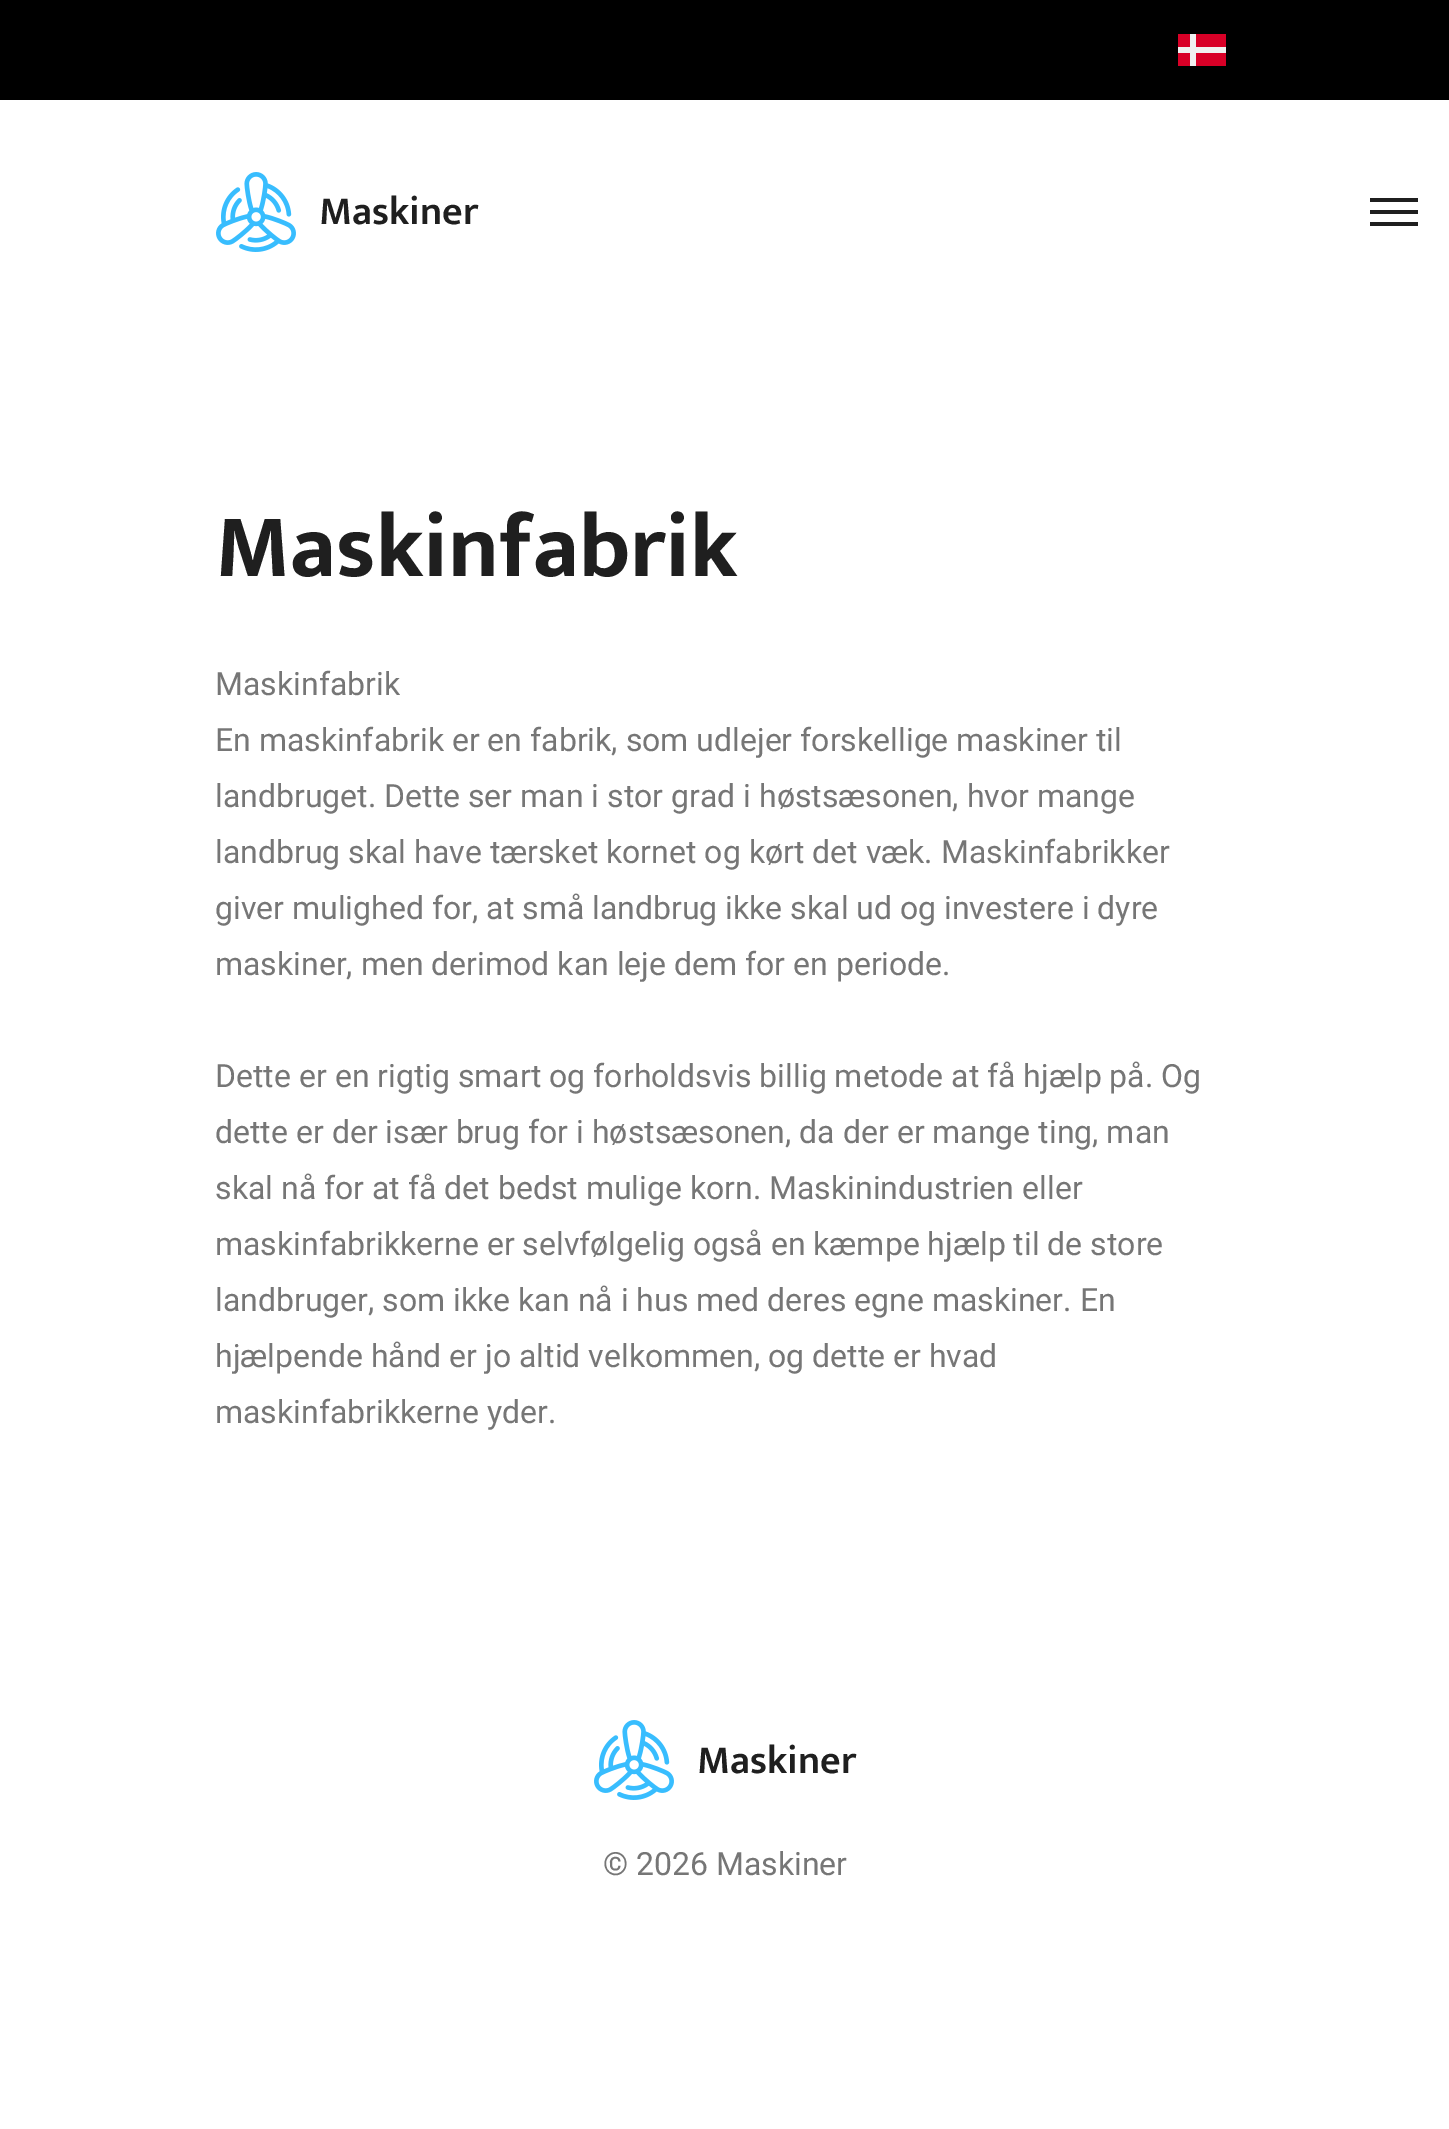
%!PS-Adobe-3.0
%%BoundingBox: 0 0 1449 2129
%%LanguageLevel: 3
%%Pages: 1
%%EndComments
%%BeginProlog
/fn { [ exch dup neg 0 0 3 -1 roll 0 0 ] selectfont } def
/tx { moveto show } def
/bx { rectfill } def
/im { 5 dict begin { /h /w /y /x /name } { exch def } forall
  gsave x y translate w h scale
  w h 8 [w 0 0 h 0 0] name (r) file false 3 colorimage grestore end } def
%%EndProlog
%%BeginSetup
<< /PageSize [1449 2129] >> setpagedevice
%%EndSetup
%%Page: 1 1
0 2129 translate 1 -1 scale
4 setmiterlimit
1 setgray
0 0 1449 2129 bx
0 setgray
0 0 1449 100 bx
(image0.raw) 1178 34 48 32 im
(image1.raw) 216 172 80 80 im
/Mukta-SemiBold 40 fn
0.122 setgray
(Maskiner) 319 224 tx
1370 210 48 4 bx
1370 198 48 4 bx
1370 222 48 4 bx
/Mukta-Bold 90.5 fn
(Maskinfabrik) 215 576 tx
/Roboto-Regular 32 fn
0.463 setgray
(Maskinfabrik) 215 695 tx
(En maskinfabrik er en fabrik, som udlejer forskellige maskiner til) 215 751 tx
(landbruget. Dette ser man i stor grad i høstsæsonen, hvor mange) 215 807 tx
(landbrug skal have tærsket kornet og kørt det væk. Maskinfabrikker) 215 863 tx
(giver mulighed for, at små landbrug ikke skal ud og investere i dyre) 215 919 tx
(maskiner, men derimod kan leje dem for en periode.) 215 975 tx
(Dette er en rigtig smart og forholdsvis billig metode at få hjælp på. Og) 215 1087 tx
(dette er der især brug for i høstsæsonen, da der er mange ting, man) 215 1143 tx
(skal nå for at få det bedst mulige korn. Maskinindustrien eller) 215 1199 tx
(maskinfabrikkerne er selvfølgelig også en kæmpe hjælp til de store) 215 1255 tx
(landbruger, som ikke kan nå i hus med deres egne maskiner. En) 215 1311 tx
(hjælpende hånd er jo altid velkommen, og dette er hvad) 215 1367 tx
(maskinfabrikkerne yder.) 215 1423 tx
(image1.raw) 594 1720 80 80 im
/Mukta-SemiBold 40 fn
0.122 setgray
(Maskiner) 697 1773 tx
/Roboto-Regular 32 fn
0.463 setgray
(© 2026 Maskiner) 603 1875 tx
showpage
%%EOF
